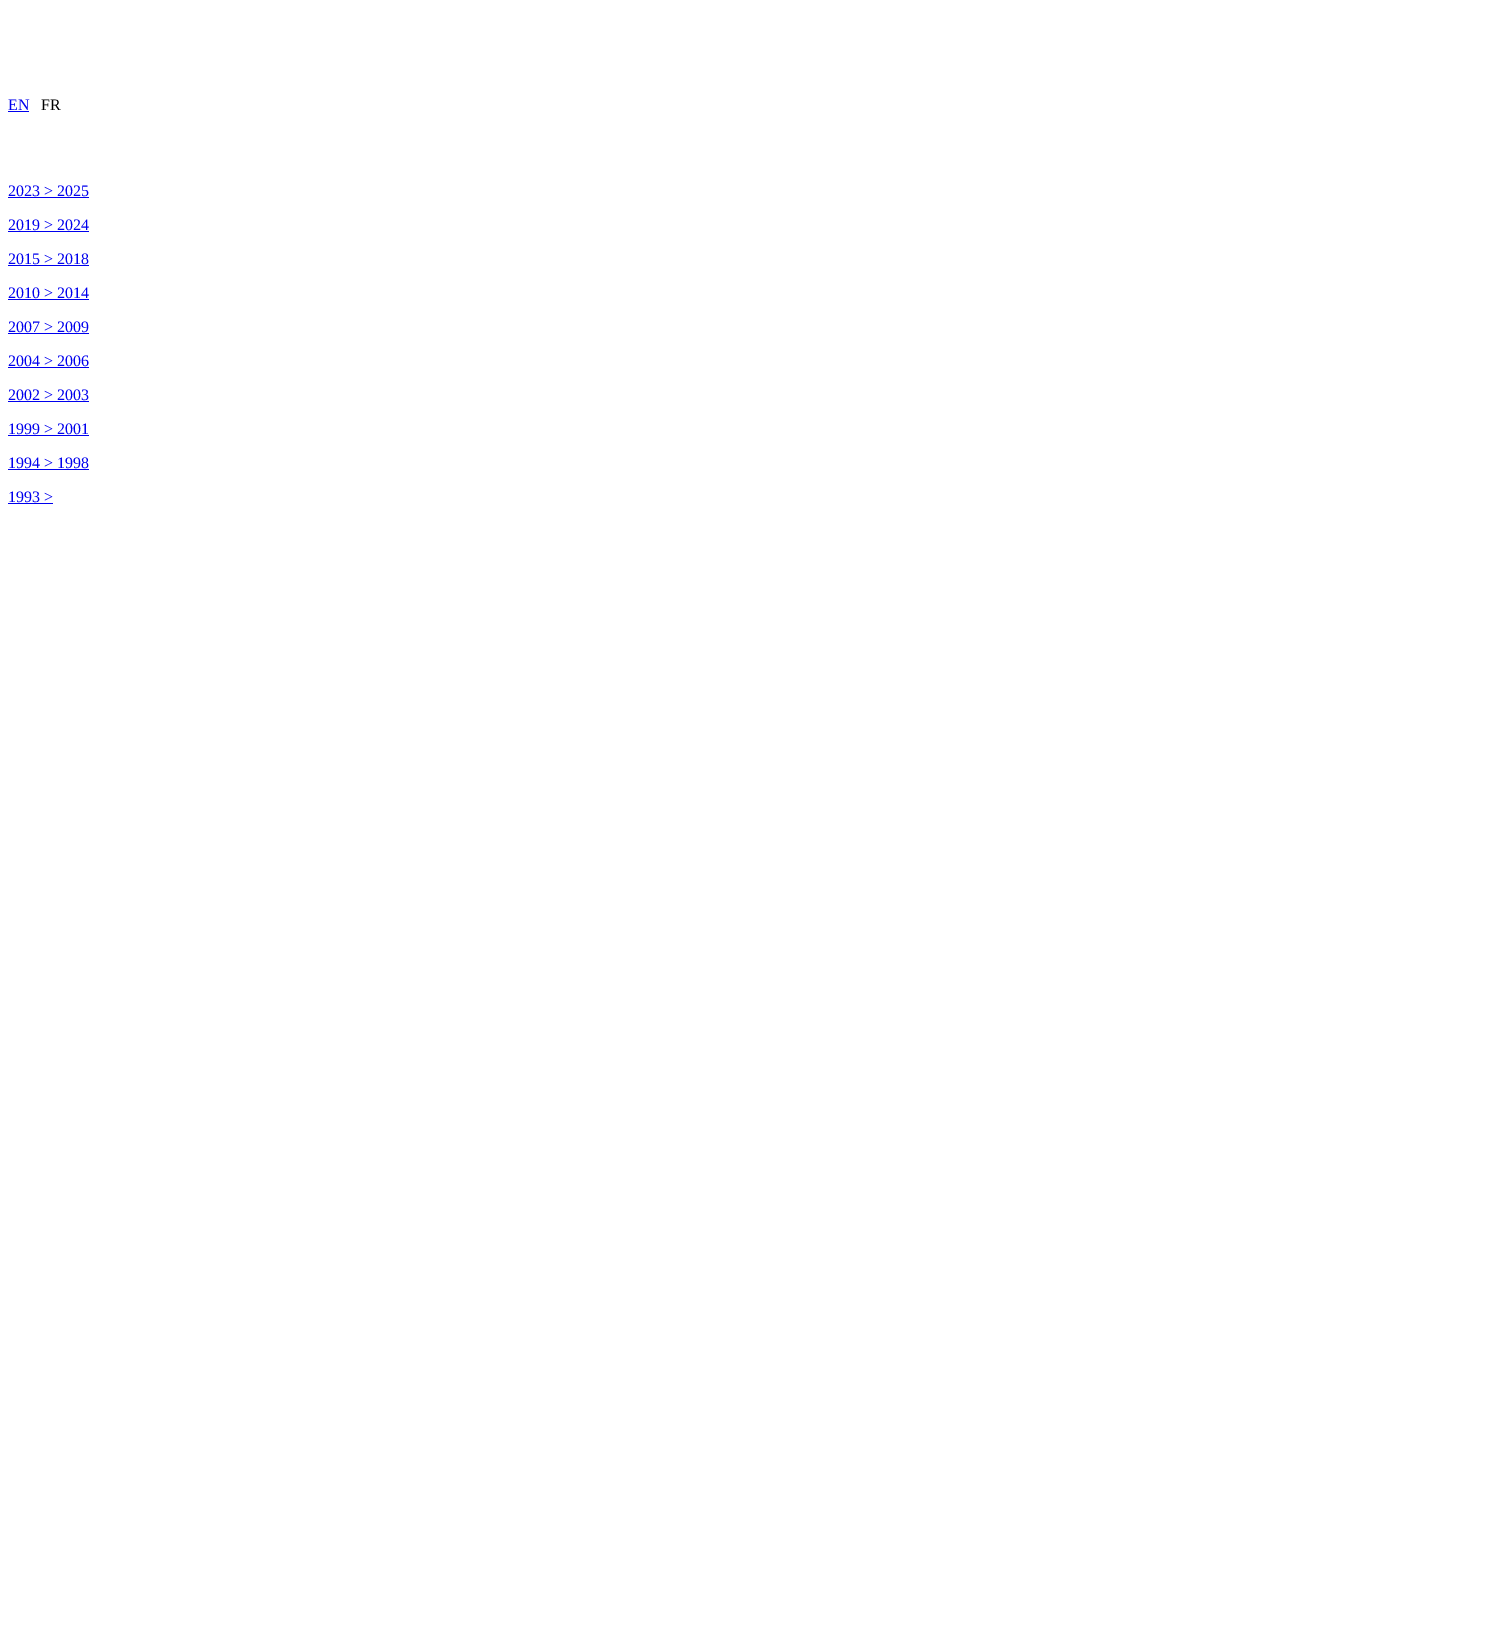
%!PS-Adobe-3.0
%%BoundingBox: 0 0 1492 1642
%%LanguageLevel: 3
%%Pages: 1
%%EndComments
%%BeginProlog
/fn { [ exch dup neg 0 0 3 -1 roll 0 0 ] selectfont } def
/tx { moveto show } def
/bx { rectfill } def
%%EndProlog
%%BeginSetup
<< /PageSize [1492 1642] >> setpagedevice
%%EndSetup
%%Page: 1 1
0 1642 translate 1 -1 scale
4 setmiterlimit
1 setgray
0 0 1492 1642 bx
/LiberationSerif-Regular 16 fn
0 0 0.933 setrgbcolor
(EN) 8 110 tx
8 111 21 1 bx
0 setgray
(FR) 41 110 tx
0 0 0.933 setrgbcolor
(2023 > 2025) 8 196 tx
8 197 81 1 bx
(2019 > 2024) 8 230 tx
8 231 81 1 bx
(2015 > 2018) 8 264 tx
8 265 81 1 bx
(2010 > 2014) 8 298 tx
8 299 81 1 bx
(2007 > 2009) 8 332 tx
8 333 81 1 bx
(2004 > 2006) 8 366 tx
8 367 81 1 bx
(2002 > 2003) 8 400 tx
8 401 81 1 bx
(1999 > 2001) 8 434 tx
8 435 81 1 bx
(1994 > 1998) 8 468 tx
8 469 81 1 bx
(1993 >) 8 502 tx
8 503 45 1 bx
showpage
%%EOF
